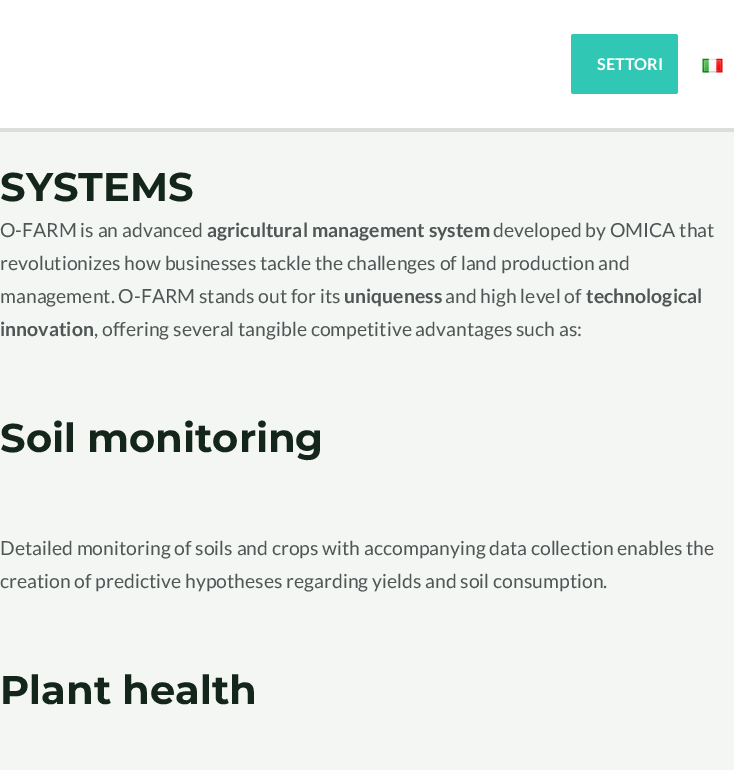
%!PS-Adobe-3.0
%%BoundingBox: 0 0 734 770
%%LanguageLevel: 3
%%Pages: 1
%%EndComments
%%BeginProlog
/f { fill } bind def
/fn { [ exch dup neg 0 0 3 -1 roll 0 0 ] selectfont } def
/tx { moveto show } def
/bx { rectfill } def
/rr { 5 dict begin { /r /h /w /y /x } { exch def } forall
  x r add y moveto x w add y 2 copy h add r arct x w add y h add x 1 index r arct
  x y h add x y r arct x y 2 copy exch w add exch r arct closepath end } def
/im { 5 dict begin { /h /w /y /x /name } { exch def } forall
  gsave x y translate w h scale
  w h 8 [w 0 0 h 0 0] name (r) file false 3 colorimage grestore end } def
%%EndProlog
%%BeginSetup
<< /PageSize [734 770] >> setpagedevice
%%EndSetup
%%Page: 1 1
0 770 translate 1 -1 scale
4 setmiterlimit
0.953 0.965 0.953 setrgbcolor
0 0 734 770 bx
1 setgray
0 0 734 128 bx
0.867 setgray
0 128 734 4 bx
0.188 0.78 0.71 setrgbcolor
571 34 107 60 2.5 rr f
/Lato-Bold 16.25 fn
1 setgray
(SETTORI) 597 70 tx
(image0.raw) 702 58 21 15 im
/Montserrat-Thin 40 fn
0.078 0.149 0.11 setrgbcolor
(SYSTEMS) 0 201 tx
/Lato-Regular 19.4 fn
0.31 0.337 0.333 setrgbcolor
(O-FARM is an advanced) 0 237 tx
/Lato-Bold 19.4 fn
(agricultural management system) 207 237 tx
/Lato-Regular 19.4 fn
(developed by OMICA that) 493 237 tx
(revolutionizes how businesses tackle the challenges of land production and) 0 270 tx
(management. O-FARM stands out for its) 0 303 tx
/Lato-Bold 19.4 fn
(uniqueness) 344 303 tx
/Lato-Regular 19.4 fn
(and high level of) 445 303 tx
/Lato-Bold 19.4 fn
(technological) 586 303 tx
(innovation) 0 336 tx
/Lato-Regular 19.4 fn
(, offering several tangible competitive advantages such as:) 94 336 tx
/Montserrat-Thin 40 fn
0.078 0.149 0.11 setrgbcolor
(Soil monitoring) 0 452 tx
/Lato-Regular 19.4 fn
0.31 0.337 0.333 setrgbcolor
(Detailed monitoring of soils and crops with accompanying data collection enables the) 0 555 tx
(creation of predictive hypotheses regarding yields and soil consumption.) 0 588 tx
/Montserrat-Thin 40 fn
0.078 0.149 0.11 setrgbcolor
(Plant health) 0 704 tx
showpage
%%EOF
